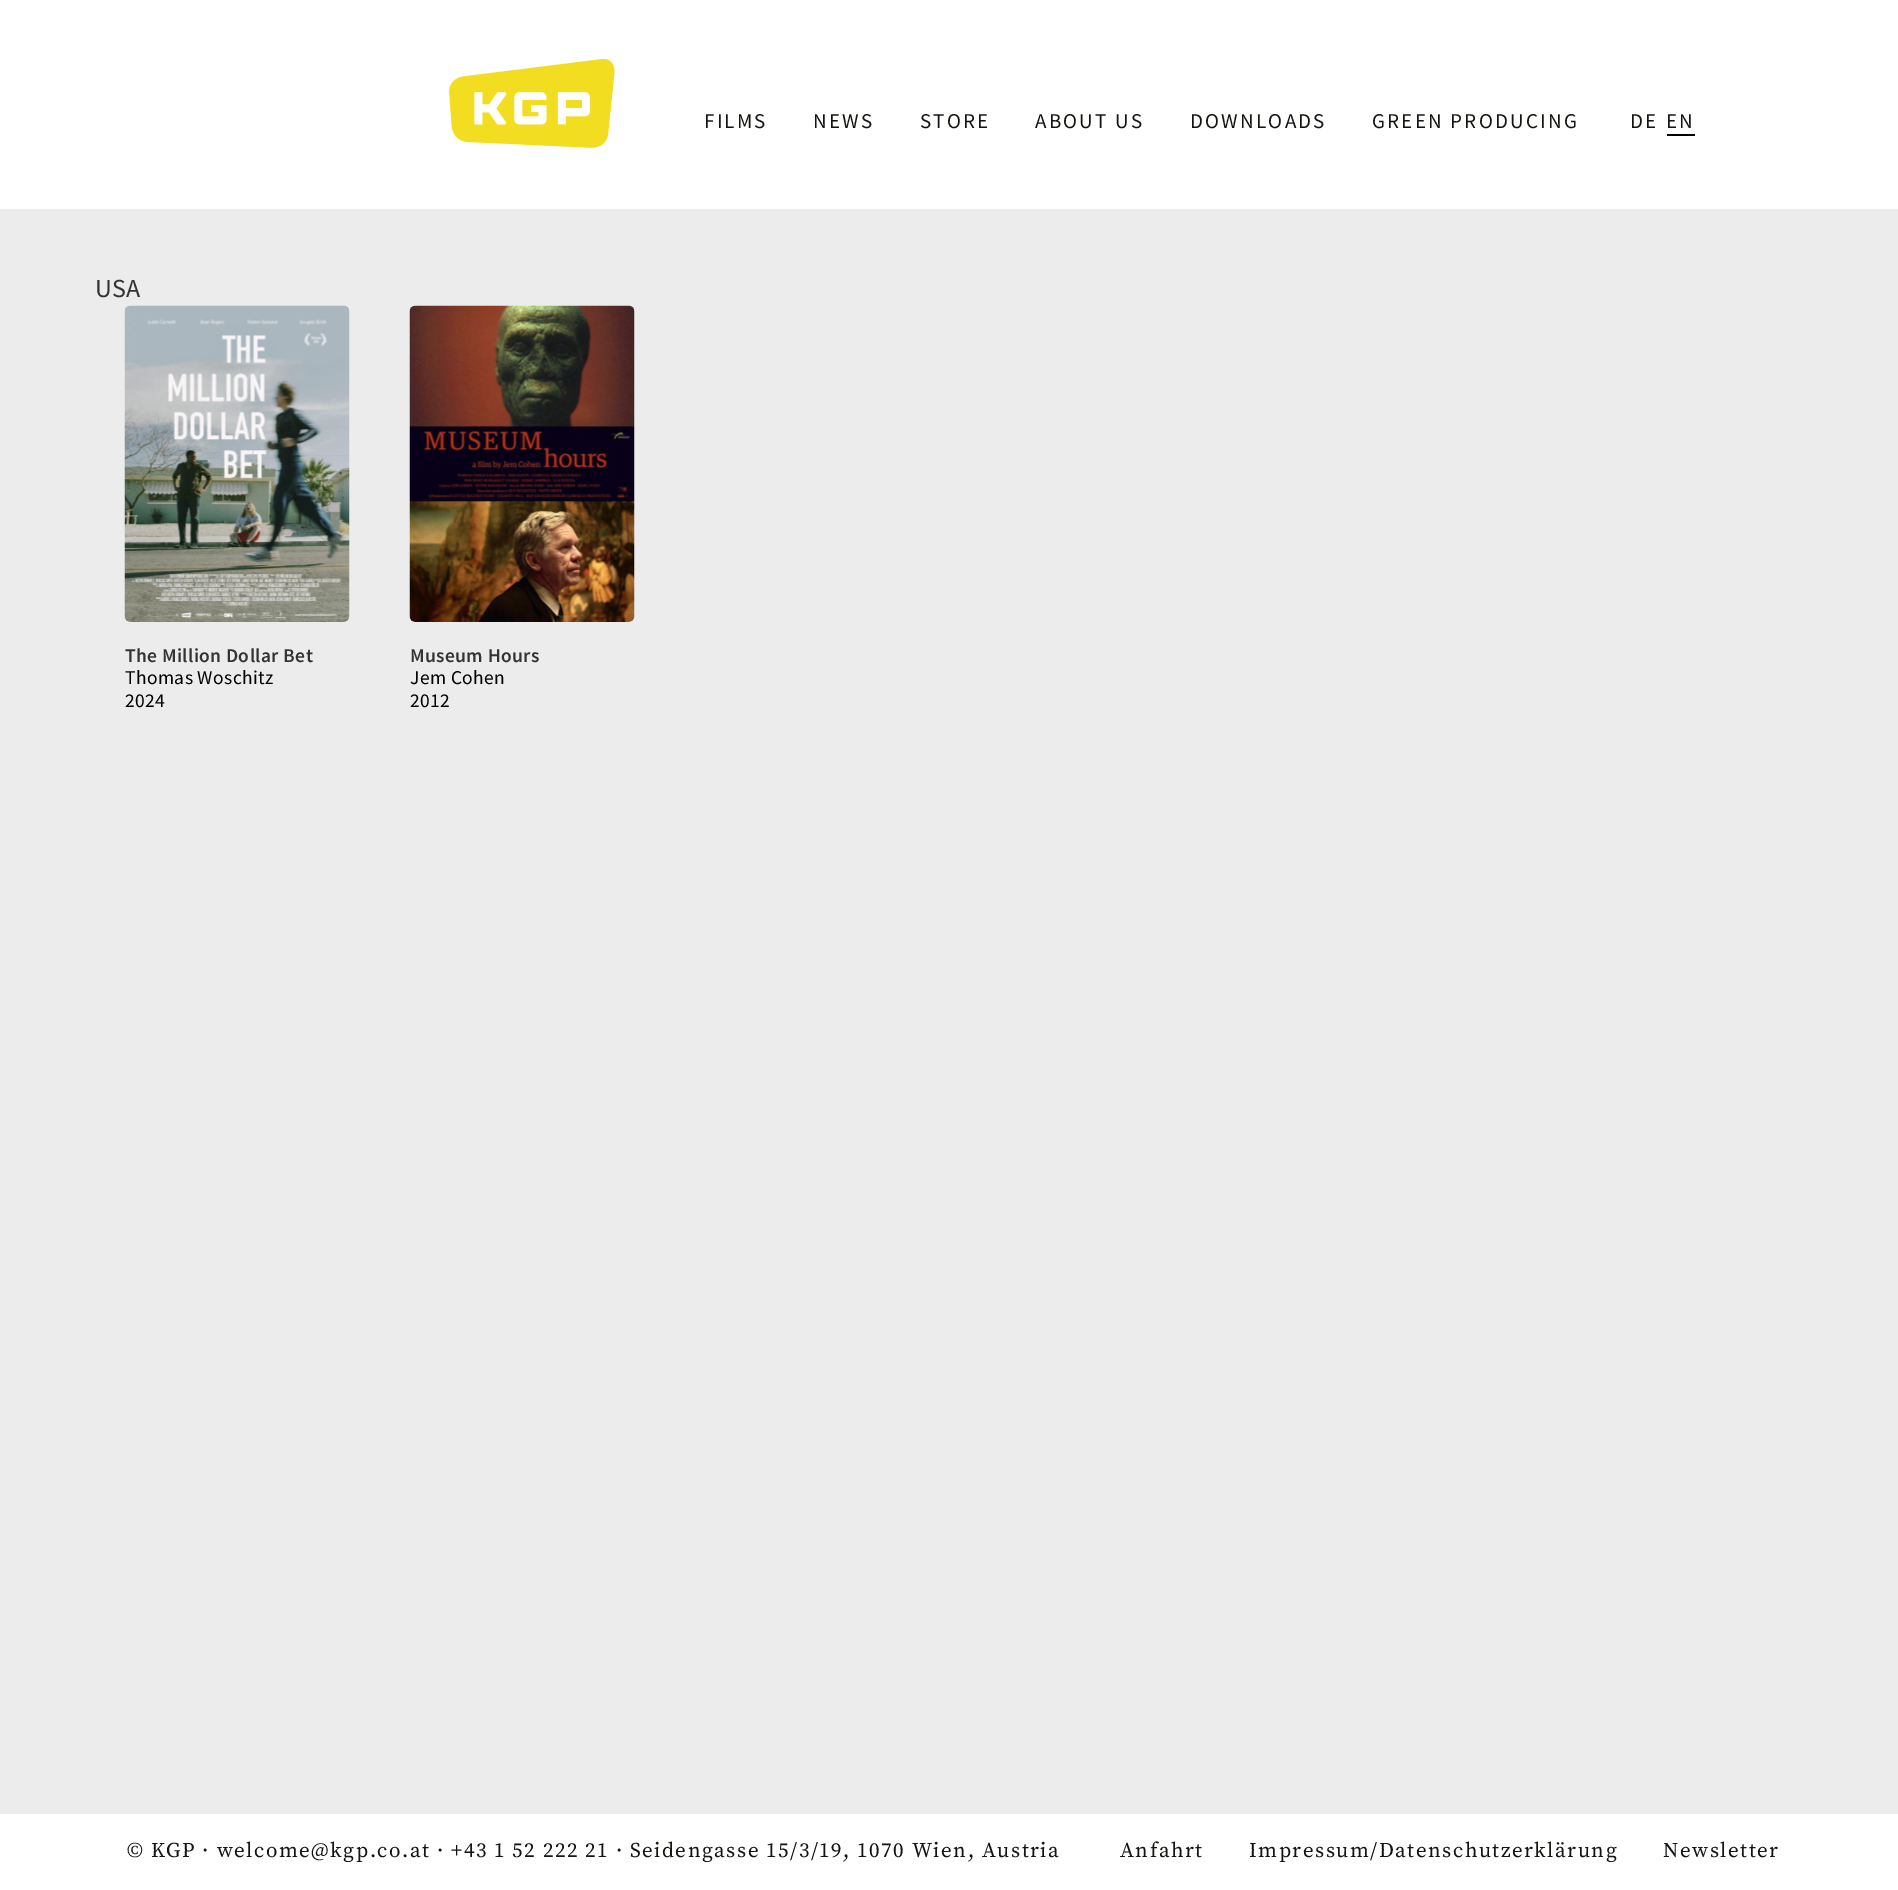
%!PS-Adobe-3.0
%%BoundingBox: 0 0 1898 1890
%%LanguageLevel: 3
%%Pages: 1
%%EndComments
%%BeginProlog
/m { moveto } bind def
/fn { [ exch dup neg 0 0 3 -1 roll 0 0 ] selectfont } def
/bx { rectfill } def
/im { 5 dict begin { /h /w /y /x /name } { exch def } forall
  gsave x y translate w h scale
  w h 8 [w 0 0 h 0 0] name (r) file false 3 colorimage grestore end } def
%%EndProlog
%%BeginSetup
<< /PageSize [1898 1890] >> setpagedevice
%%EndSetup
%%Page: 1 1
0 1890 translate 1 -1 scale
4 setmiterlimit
0.925 setgray
0 0 1898 1890 bx
1 setgray
0 0 1898 209 bx
(image0.raw) 449 59 166 89 im
/SourceSansPro-Regular 21 fn
0.078 0.078 0.067 setrgbcolor
704 128 m 2.25 0 (FILMS) ashow
813 128 m 2.25 0 (NEWS) ashow
920 128 m 2.25 0 (STORE) ashow
1035 128 m 2.25 0 (ABOUT US) ashow
1190 128 m 2.25 0 (DOWNLOADS) ashow
1372 128 m 2.25 0 (GREEN PRODUCING) ashow
1630 128 m 2.25 0 (DE) ashow
1666 128 m 2.25 0 (EN) ashow
0 setgray
1667 134 28 2 bx
/SourceSansPro-Regular 26 fn
0.2 setgray
95 297 m 0.4 0 (USA) ashow
(image1.raw) 124 305 226 317 im
/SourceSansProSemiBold-SemiBold 19.5 fn
125 662 m 0.4 0 (The Million Dollar Bet) ashow
/SourceSansPro-Regular 19.5 fn
0 setgray
125 684 m 0.4 0 (Thomas Woschitz) ashow
125 707 m 0.4 0 (2024) ashow
(image2.raw) 409 305 226 317 im
/SourceSansProSemiBold-SemiBold 19.5 fn
0.2 setgray
410 662 m 0.4 0 (Museum Hours) ashow
/SourceSansPro-Regular 19.5 fn
0 setgray
410 684 m 0.4 0 (Jem Cohen) ashow
410 707 m 0.4 0 (2012) ashow
1 setgray
0 1814 1898 76 bx
/SourceSerifPro-Regular 21 fn
0.078 0.078 0.067 setrgbcolor
127 1857 m 1.5 0 (© KGP · welcome@kgp.co.at · +43 1 52 222 21 · Seidengasse 15/3/19, 1070 Wien, Austria) ashow
1120 1857 m 1.5 0 (Anfahrt) ashow
1249 1857 m 1.5 0 (Impressum/Datenschutzerklärung) ashow
1663 1857 m 1.5 0 (Newsletter) ashow
showpage
%%EOF
